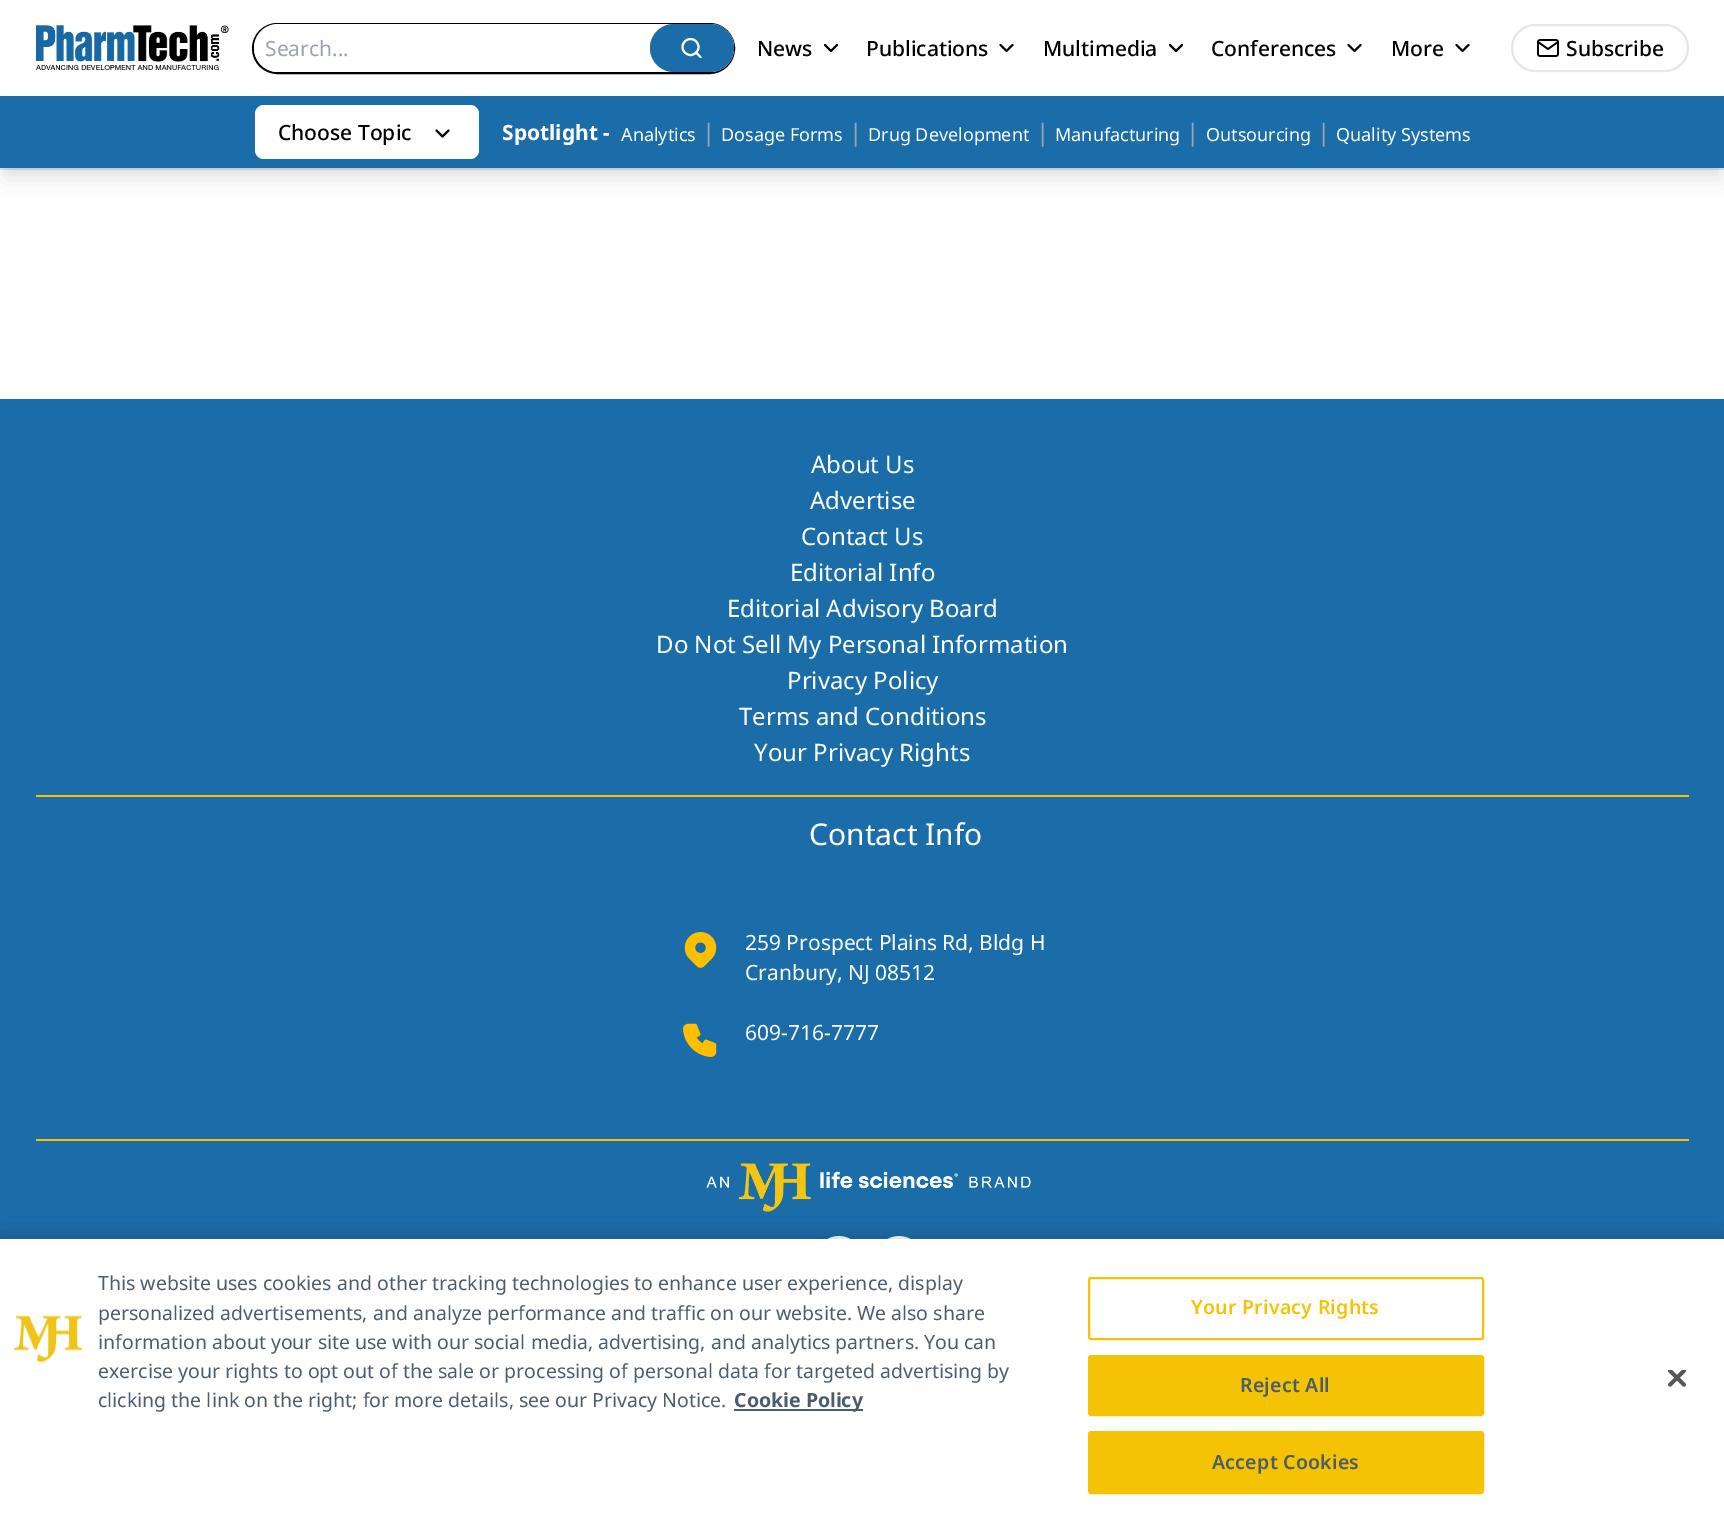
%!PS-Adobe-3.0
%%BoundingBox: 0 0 1724 1524
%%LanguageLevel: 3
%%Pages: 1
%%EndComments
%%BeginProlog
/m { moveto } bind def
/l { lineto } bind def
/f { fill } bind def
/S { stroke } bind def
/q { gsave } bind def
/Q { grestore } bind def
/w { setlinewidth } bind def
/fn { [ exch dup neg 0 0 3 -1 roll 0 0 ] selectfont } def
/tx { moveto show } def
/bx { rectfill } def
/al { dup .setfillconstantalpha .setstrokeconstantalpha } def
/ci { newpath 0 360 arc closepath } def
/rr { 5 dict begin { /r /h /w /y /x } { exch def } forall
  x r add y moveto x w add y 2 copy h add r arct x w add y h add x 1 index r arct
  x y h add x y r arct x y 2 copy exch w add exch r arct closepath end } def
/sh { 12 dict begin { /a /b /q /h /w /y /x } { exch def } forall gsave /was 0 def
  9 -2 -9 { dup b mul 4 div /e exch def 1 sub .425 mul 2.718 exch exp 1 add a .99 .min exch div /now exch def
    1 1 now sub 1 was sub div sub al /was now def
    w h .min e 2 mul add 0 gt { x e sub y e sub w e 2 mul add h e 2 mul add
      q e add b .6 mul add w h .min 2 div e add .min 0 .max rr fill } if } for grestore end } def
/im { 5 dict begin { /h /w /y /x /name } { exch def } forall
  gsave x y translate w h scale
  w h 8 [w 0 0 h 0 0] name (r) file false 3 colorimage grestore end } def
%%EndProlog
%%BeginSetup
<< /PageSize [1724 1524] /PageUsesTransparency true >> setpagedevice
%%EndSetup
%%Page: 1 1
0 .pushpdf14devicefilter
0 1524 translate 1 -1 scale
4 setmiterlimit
1 setgray
0 0 1724 1524 bx
0.898 0.906 0.922 setrgbcolor
0 168 1724 2 bx
(image0.raw) 36 25 193 45 im
0 setgray
2 w
253 24 481 49 24.5 rr S
1 setgray
254 24 480 48 24 rr f
/NotoSans-Regular 21 fn
0.612 0.639 0.686 setrgbcolor
(Search...) 265 56 tx
0.102 0.427 0.659 setrgbcolor
650 24 84 48 24 rr f
1 setgray
690.5 47 8 ci S
1 setlinecap
1 setlinejoin
700.5 57 m 696 52.5 l S
/NotoSans-Medium 21 fn
0 setgray
(News) 757 56 tx
825 45 m 831 51 l 837 45 l S
(Publications) 866 56 tx
1000.5 45 m 1006.5 51 l 1012.5 45 l S
(Multimedia) 1043 56 tx
1170 45 m 1176 51 l 1182 45 l S
(Conferences) 1211 56 tx
1348.5 45 m 1354.5 51 l 1360.5 45 l S
(More) 1391 56 tx
1456.5 45 m 1462.5 51 l 1468.5 45 l S
0.898 0.906 0.922 setrgbcolor
0 setlinecap
0 setlinejoin
1512 25 176 46 23 rr S
(image1.raw) 1537 39 22 18 im
0 setgray
(Subscribe) 1566 56 tx
6 108 1713 60 0 4.5 0.1 sh
5 116 1716 63 0 11 0.1 sh
0.102 0.427 0.659 setrgbcolor
0 96 1724 72 bx
1 setgray
255 105 224 54 9 rr f
0 setgray
(Choose Topic) 278 140 tx
1 setlinecap
1 setlinejoin
436.5 130.5 m 442.5 136.5 l 448.5 130.5 l S
q
503 105 967 54 rectclip
/NotoSans-Bold 21 fn
1 setgray
(Spotlight -) 502 140 tx
Q
/NotoSans-Regular 18 fn
1 setgray
(Analytics) 621 141 tx
/NotoSans-Regular 24 fn
0.612 0.639 0.686 setrgbcolor
(|) 702 141 tx
/NotoSans-Regular 18 fn
1 setgray
(Dosage Forms) 721 141 tx
/NotoSans-Regular 24 fn
0.612 0.639 0.686 setrgbcolor
(|) 849 141 tx
/NotoSans-Regular 18 fn
1 setgray
(Drug Development) 868 141 tx
/NotoSans-Regular 24 fn
0.612 0.639 0.686 setrgbcolor
(|) 1036 141 tx
/NotoSans-Regular 18 fn
1 setgray
(Manufacturing) 1055 141 tx
/NotoSans-Regular 24 fn
0.612 0.639 0.686 setrgbcolor
(|) 1186 141 tx
/NotoSans-Regular 18 fn
1 setgray
(Outsourcing) 1206 141 tx
/NotoSans-Regular 24 fn
0.612 0.639 0.686 setrgbcolor
(|) 1317 141 tx
/NotoSans-Regular 18 fn
1 setgray
(Quality Systems) 1336 141 tx
0.102 0.427 0.659 setrgbcolor
0 399 1724 840 bx
/NotoSans-Regular 24 fn
1 setgray
(About Us) 811 473 tx
(Advertise) 810 509 tx
(Contact Us) 801 545 tx
(Editorial Info) 790 581 tx
(Editorial Advisory Board) 727 617 tx
(Do Not Sell My Personal Information) 656 653 tx
(Privacy Policy) 787 689 tx
(Terms and Conditions) 739 725 tx
(Your Privacy Rights) 754 761 tx
1 0.749 0 setrgbcolor
36 795 1653 2 bx
36 1139 1653 2 bx
/NotoSans-Regular 30 fn
1 setgray
(Contact Info) 809 845 tx
(image2.raw) 684 932 33 36 im
/NotoSans-Regular 21 fn
(259 Prospect Plains Rd, Bldg H) 745 950 tx
(Cranbury, NJ 08512) 745 980 tx
(image3.raw) 683 1023 34 34 im
(609-716-7777) 745 1040 tx
(image4.raw) 706 1163 325 49 im
(image5.raw) 827 1236 24 3 im
(image5.raw) 887 1236 24 3 im
0 setgray
0 1239 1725 285 0 13.5 0.2 sh
1 setgray
0 1239 1724 285 bx
(image6.raw) 13 1315 70 48 im
/NotoSans-Regular 19.5 fn
0.298 0.361 0.42 setrgbcolor
(This website uses cookies and other tracking technologies to enhance user experience, display) 98 1290 tx
(personalized advertisements, and analyze performance and traffic on our website. We also share) 98 1320 tx
(information about your site use with our social media, advertising, and analytics partners. You can) 98 1349 tx
(exercise your rights to opt out of the sale or processing of personal data for targeted advertising by) 98 1378 tx
(clicking the link on the right; for more details, see our Privacy Notice.) 98 1407 tx
734 1409 129 2 bx
/NotoSans-Bold 19.5 fn
(Cookie Policy) 734 1407 tx
0.957 0.769 0.016 setrgbcolor
0 setlinecap
0 setlinejoin
1089 1278 394 61 2 rr S
/NotoSans-SemiBold 19.5 fn
1191 1314 m 0.25 0 (Your Privacy Rights) ashow
1089 1356 394 59 2 rr q f Q
S
0.298 0.361 0.42 setrgbcolor
1240 1392 m 0.25 0 (Reject All) ashow
0.957 0.769 0.016 setrgbcolor
1089 1432 394 61 2 rr q f Q
S
0.298 0.361 0.42 setrgbcolor
1212 1469 m 0.25 0 (Accept Cookies) ashow
(image7.raw) 1668 1370 18 17 im
.poppdf14devicefilter showpage
%%EOF
